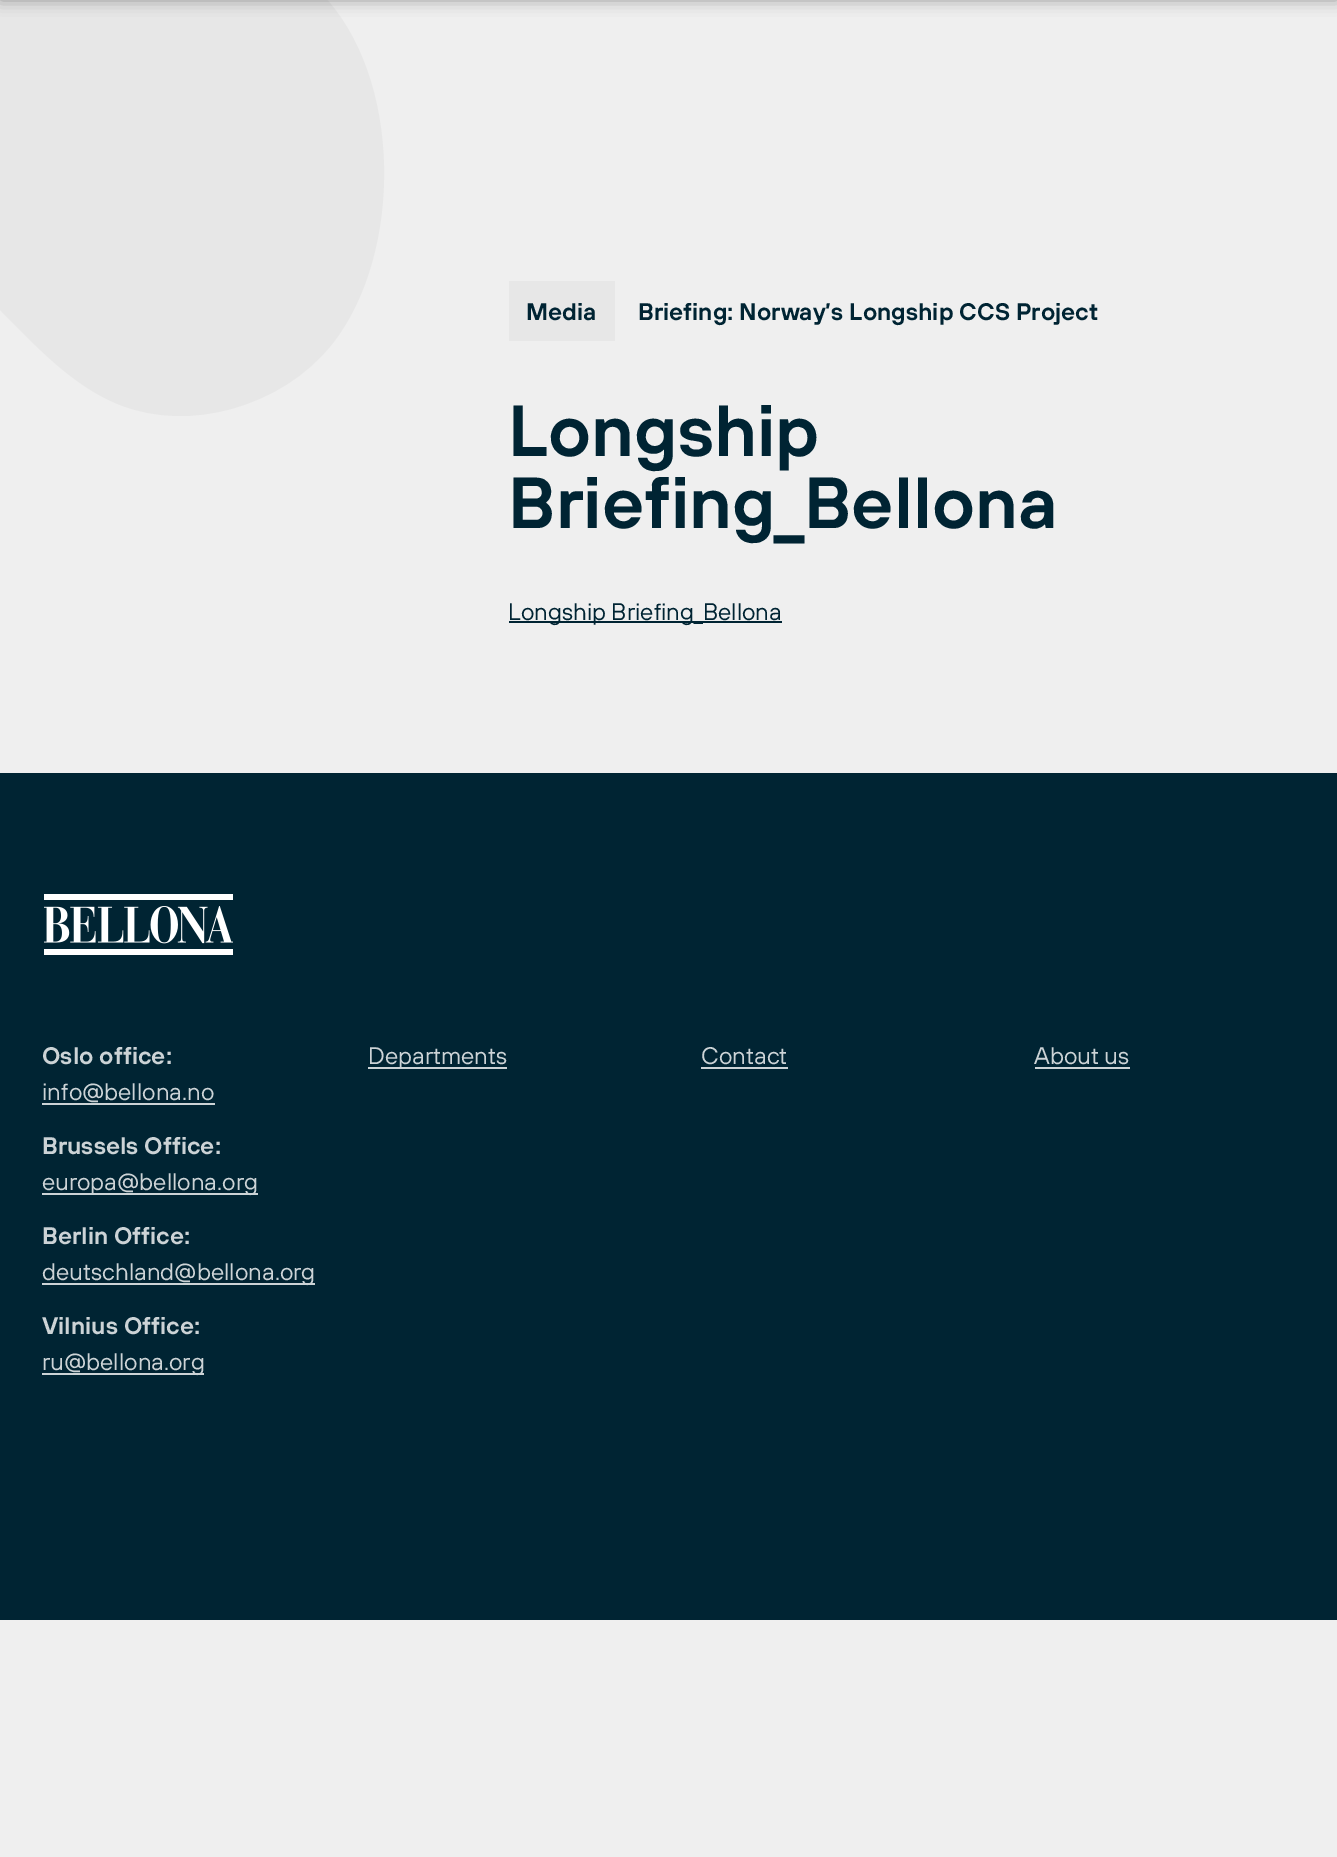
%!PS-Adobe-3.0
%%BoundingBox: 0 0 1337 1857
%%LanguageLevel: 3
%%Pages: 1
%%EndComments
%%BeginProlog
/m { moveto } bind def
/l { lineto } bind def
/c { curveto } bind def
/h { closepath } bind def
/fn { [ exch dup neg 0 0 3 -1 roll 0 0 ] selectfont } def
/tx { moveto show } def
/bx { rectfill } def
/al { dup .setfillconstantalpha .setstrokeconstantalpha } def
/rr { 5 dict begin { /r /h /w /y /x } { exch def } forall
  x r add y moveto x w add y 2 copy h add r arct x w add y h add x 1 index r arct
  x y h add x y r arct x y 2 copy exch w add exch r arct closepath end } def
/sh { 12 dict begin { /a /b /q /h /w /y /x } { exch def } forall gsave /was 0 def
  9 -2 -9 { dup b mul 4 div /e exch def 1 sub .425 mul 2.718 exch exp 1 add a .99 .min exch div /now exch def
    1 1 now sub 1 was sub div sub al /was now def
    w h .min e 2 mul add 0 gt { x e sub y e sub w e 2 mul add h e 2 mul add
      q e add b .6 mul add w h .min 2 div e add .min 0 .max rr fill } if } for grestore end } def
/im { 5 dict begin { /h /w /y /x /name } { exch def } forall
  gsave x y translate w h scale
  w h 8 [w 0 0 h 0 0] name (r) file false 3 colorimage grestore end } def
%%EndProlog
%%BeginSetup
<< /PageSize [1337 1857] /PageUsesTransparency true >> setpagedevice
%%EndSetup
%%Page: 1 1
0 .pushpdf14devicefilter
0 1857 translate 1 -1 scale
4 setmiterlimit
0.937 setgray
0 0 1337 1857 bx
0.906 setgray
321 -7 m 403 77 403 253 333 343 c 307 376 271 398 231 409 c 195 419 156 419 120 405 c 72 386 36 346 0 310 c 0 -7 l h eofill
0 setgray
0 -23 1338 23 0 7.5 0.35 sh
0.906 setgray
509 281 106 60 bx
/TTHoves-SemiBold 24 fn
0 0.141 0.2 setrgbcolor
(Media) 526 320 tx
(Briefing: Norway’s Longship CCS Project) 638 320 tx
/TTHoves-SemiBold 72 fn
(Longship) 508 456 tx
(Briefing_Bellona) 508 528 tx
509 621 273 2 bx
/TTHoves-Regular 24 fn
(Longship Briefing_Bellona) 508 620 tx
0 773 1337 847 bx
(image0.raw) 44 894 189 61 im
/TTHoves-SemiBold 24 fn
0.8 0.827 0.839 setrgbcolor
(Oslo office:) 42 1064 tx
/TTHoves-Regular 24 fn
(info@bellona.no) 42 1100 tx
42 1103 173 2 bx
/TTHoves-SemiBold 24 fn
(Brussels Office:) 42 1154 tx
42 1193 216 2 bx
/TTHoves-Regular 24 fn
(europa@bellona.org) 42 1190 tx
/TTHoves-SemiBold 24 fn
(Berlin Office:) 42 1244 tx
42 1283 273 2 bx
/TTHoves-Regular 24 fn
(deutschland@bellona.org) 42 1280 tx
/TTHoves-SemiBold 24 fn
(Vilnius Office:) 42 1334 tx
42 1373 162 2 bx
/TTHoves-Regular 24 fn
(ru@bellona.org) 42 1370 tx
368 1067 139 2 bx
(Departments) 368 1064 tx
(Contact) 701 1064 tx
701 1067 87 2 bx
(About us) 1034 1064 tx
1035 1067 95 2 bx
.poppdf14devicefilter showpage
%%EOF
